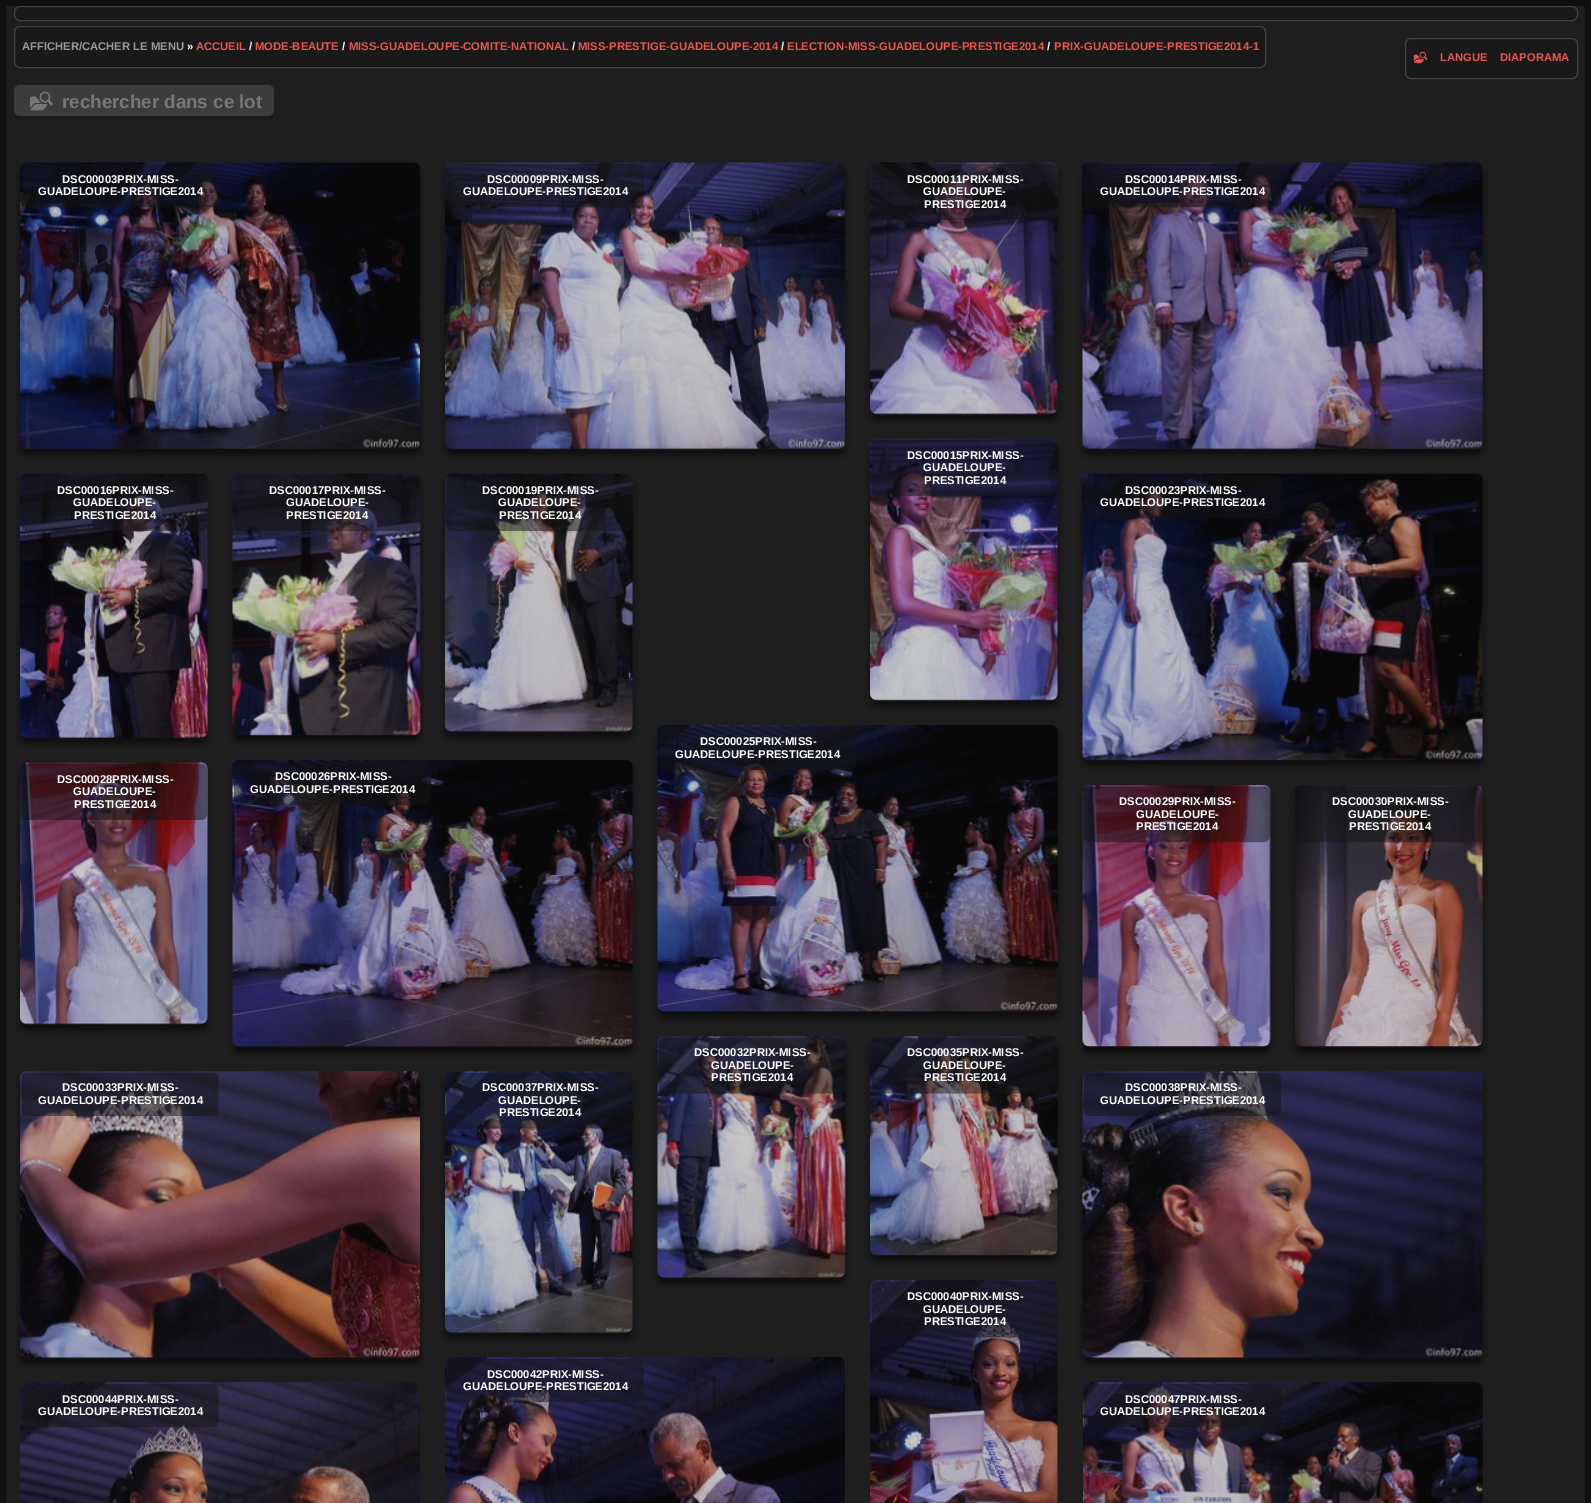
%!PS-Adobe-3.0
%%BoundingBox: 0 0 1591 1503
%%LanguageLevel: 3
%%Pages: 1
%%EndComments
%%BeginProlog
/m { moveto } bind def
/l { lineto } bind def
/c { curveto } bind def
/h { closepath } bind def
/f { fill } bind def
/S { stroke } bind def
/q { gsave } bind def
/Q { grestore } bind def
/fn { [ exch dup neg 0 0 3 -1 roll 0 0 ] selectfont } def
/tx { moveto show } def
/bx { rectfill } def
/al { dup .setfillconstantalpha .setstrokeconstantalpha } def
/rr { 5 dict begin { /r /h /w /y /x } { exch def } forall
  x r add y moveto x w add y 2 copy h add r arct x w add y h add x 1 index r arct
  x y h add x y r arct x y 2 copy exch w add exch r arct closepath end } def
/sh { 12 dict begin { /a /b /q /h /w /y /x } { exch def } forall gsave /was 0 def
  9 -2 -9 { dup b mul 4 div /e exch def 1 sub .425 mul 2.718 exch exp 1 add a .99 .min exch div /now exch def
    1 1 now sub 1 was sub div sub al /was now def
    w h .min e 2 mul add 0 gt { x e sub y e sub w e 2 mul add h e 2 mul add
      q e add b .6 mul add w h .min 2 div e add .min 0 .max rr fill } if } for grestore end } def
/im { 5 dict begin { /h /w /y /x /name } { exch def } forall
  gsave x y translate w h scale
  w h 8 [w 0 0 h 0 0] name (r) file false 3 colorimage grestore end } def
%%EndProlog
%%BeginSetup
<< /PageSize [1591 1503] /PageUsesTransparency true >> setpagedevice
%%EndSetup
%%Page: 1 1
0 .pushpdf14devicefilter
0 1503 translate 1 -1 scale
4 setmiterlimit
0.063 setgray
0 0 1591 1503 bx
0.118 setgray
6 6 1579 1497 bx
(image0.raw) 14 7 1563 14 im
0.259 setgray
14.5 6.5 1563 14 5.5 rr S
(image1.raw) 14 27 1252 40 im
14.5 26.5 1251 41 5.5 rr S
/LiberationSans-Bold 11.25 fn
0.6 setgray
(AFFICHER/CACHER LE MENU) 22 50 tx
1 setgray
(») 187 50 tx
0.902 0.333 0.31 setrgbcolor
(ACCUEIL) 196 50 tx
1 setgray
(/) 249 50 tx
0.902 0.333 0.31 setrgbcolor
(MODE-BEAUTE) 255 50 tx
1 setgray
(/) 342 50 tx
0.902 0.333 0.31 setrgbcolor
(MISS-GUADELOUPE-COMITE-NATIONAL) 349 50 tx
1 setgray
(/) 572 50 tx
0.902 0.333 0.31 setrgbcolor
(MISS-PRESTIGE-GUADELOUPE-2014) 578 50 tx
1 setgray
(/) 781 50 tx
0.902 0.333 0.31 setrgbcolor
(ELECTION-MISS-GUADELOUPE-PRESTIGE2014) 787 50 tx
1 setgray
(/) 1047 50 tx
0.902 0.333 0.31 setrgbcolor
(PRIX-GUADELOUPE-PRESTIGE2014-1) 1054 50 tx
(image2.raw) 1405 38 172 40 im
0.259 setgray
1405.5 38.5 172 40 5.5 rr S
(image3.raw) 1413 51 15 12 im
0.902 0.333 0.31 setrgbcolor
(LANGUE) 1440 61 tx
(DIAPORAMA) 1500 61 tx
0.102 setgray
14 112 m 14 115 16 119 20 119 c 268 119 l 275 119 274 111 274 107 c 274 92 l 274 110 l 274 113 271 116 268 116 c 20 116 l 17 116 15 114 14 112 c h f
0.235 setgray
14 85 260 31 6 rr f
(image4.raw) 30 91 23 20 im
/LiberationSans-Bold 18.75 fn
0.467 setgray
(rechercher dans ce lot) 62 108 tx
q
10 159 m 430 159 l 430 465 l 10 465 l h 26 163 m 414 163 l 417.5 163 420 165.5 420 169 c 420 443 l 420 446.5 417.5 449 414 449 c 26 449 l 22.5 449 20 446.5 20 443 c 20 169 l 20 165.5 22.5 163 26 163 c h eoclip newpath
0.031 setgray
20 169 400 286 6 3 0.75 sh
Q
(image5.raw) 20 162 400 288 im
(image6.raw) 21 164 198 44 im
/LiberationSans-Bold 11.25 fn
1 setgray
(DSC00003PRIX-MISS-) 62 183 tx
(GUADELOUPE-PRESTIGE2014) 38 195 tx
q
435 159 m 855 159 l 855 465 l 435 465 l h 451 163 m 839 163 l 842.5 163 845 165.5 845 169 c 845 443 l 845 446.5 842.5 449 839 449 c 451 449 l 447.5 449 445 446.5 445 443 c 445 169 l 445 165.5 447.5 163 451 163 c h eoclip newpath
0.031 setgray
445 169 400 286 6 3 0.75 sh
Q
(image7.raw) 445 162 400 288 im
(image8.raw) 446 164 198 44 im
(DSC00009PRIX-MISS-) 487 183 tx
(GUADELOUPE-PRESTIGE2014) 463 195 tx
q
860 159 m 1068 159 l 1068 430 l 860 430 l h 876 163 m 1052 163 l 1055.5 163 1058 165.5 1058 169 c 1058 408 l 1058 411.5 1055.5 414 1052 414 c 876 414 l 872.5 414 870 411.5 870 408 c 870 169 l 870 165.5 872.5 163 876 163 c h eoclip newpath
0.031 setgray
870 169 188 251 6 3 0.75 sh
Q
(image9.raw) 870 162 188 253 im
(image10.raw) 871 164 186 56 im
(DSC00011PRIX-MISS-) 907 183 tx
(GUADELOUPE-) 923 195 tx
(PRESTIGE2014) 924 208 tx
q
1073 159 m 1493 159 l 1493 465 l 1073 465 l h 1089 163 m 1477 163 l 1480.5 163 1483 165.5 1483 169 c 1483 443 l 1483 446.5 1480.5 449 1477 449 c 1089 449 l 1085.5 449 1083 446.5 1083 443 c 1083 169 l 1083 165.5 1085.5 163 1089 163 c h eoclip newpath
0.031 setgray
1083 169 400 286 6 3 0.75 sh
Q
(image11.raw) 1082 162 401 288 im
(image12.raw) 1084 164 198 44 im
(DSC00014PRIX-MISS-) 1125 183 tx
(GUADELOUPE-PRESTIGE2014) 1100 195 tx
q
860 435 m 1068 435 l 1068 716 l 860 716 l h 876 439 m 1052 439 l 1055.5 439 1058 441.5 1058 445 c 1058 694 l 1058 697.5 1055.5 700 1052 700 c 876 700 l 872.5 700 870 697.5 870 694 c 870 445 l 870 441.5 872.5 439 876 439 c h eoclip newpath
0.031 setgray
870 445 188 261 6 3 0.75 sh
Q
(image13.raw) 870 438 188 263 im
(image14.raw) 871 440 187 57 im
(DSC00015PRIX-MISS-) 907 459 tx
(GUADELOUPE-) 923 471 tx
(PRESTIGE2014) 924 484 tx
q
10 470 m 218 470 l 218 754 l 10 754 l h 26 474 m 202 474 l 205.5 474 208 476.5 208 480 c 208 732 l 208 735.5 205.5 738 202 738 c 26 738 l 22.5 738 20 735.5 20 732 c 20 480 l 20 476.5 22.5 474 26 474 c h eoclip newpath
0.031 setgray
20 480 188 264 6 3 0.75 sh
Q
(image15.raw) 20 473 188 265 im
(image16.raw) 21 475 187 57 im
(DSC00016PRIX-MISS-) 57 494 tx
(GUADELOUPE-) 73 506 tx
(PRESTIGE2014) 74 519 tx
q
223 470 m 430 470 l 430 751 l 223 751 l h 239 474 m 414 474 l 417.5 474 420 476.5 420 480 c 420 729 l 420 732.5 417.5 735 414 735 c 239 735 l 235.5 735 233 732.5 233 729 c 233 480 l 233 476.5 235.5 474 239 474 c h eoclip newpath
0.031 setgray
233 480 187 261 6 3 0.75 sh
Q
(image17.raw) 232 473 189 263 im
(image18.raw) 234 475 186 57 im
(DSC00017PRIX-MISS-) 269 494 tx
(GUADELOUPE-) 286 506 tx
(PRESTIGE2014) 286 519 tx
q
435 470 m 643 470 l 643 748 l 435 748 l h 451 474 m 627 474 l 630.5 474 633 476.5 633 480 c 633 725 l 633 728.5 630.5 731 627 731 c 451 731 l 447.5 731 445 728.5 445 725 c 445 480 l 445 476.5 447.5 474 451 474 c h eoclip newpath
0.031 setgray
445 480 188 258 6 3 0.75 sh
Q
(image19.raw) 445 473 188 259 im
(image20.raw) 446 475 187 57 im
(DSC00019PRIX-MISS-) 482 494 tx
(GUADELOUPE-) 498 506 tx
(PRESTIGE2014) 499 519 tx
q
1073 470 m 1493 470 l 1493 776 l 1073 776 l h 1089 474 m 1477 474 l 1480.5 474 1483 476.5 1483 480 c 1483 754 l 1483 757.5 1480.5 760 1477 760 c 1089 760 l 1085.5 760 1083 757.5 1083 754 c 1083 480 l 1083 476.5 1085.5 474 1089 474 c h eoclip newpath
0.031 setgray
1083 480 400 286 6 3 0.75 sh
Q
(image21.raw) 1082 473 401 288 im
(image22.raw) 1084 475 197 44 im
(DSC00023PRIX-MISS-) 1125 494 tx
(GUADELOUPE-PRESTIGE2014) 1100 506 tx
q
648 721 m 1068 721 l 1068 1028 l 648 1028 l h 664 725 m 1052 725 l 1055.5 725 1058 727.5 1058 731 c 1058 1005 l 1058 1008.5 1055.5 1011 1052 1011 c 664 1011 l 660.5 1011 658 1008.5 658 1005 c 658 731 l 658 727.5 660.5 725 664 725 c h eoclip newpath
0.031 setgray
658 731 400 287 6 3 0.75 sh
Q
(image23.raw) 657 725 401 287 im
(image24.raw) 659 726 197 44 im
(DSC00025PRIX-MISS-) 700 745 tx
(GUADELOUPE-PRESTIGE2014) 675 758 tx
q
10 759 m 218 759 l 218 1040 l 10 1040 l h 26 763 m 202 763 l 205.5 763 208 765.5 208 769 c 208 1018 l 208 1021.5 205.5 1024 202 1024 c 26 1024 l 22.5 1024 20 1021.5 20 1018 c 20 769 l 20 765.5 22.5 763 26 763 c h eoclip newpath
0.031 setgray
20 769 188 261 6 3 0.75 sh
Q
(image25.raw) 20 762 188 263 im
(image26.raw) 21 764 187 56 im
(DSC00028PRIX-MISS-) 57 783 tx
(GUADELOUPE-) 73 795 tx
(PRESTIGE2014) 74 808 tx
q
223 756 m 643 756 l 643 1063 l 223 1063 l h 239 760 m 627 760 l 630.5 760 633 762.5 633 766 c 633 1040 l 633 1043.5 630.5 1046 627 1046 c 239 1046 l 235.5 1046 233 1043.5 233 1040 c 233 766 l 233 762.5 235.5 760 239 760 c h eoclip newpath
0.031 setgray
233 766 400 287 6 3 0.75 sh
Q
(image27.raw) 232 760 401 287 im
(image28.raw) 234 761 197 44 im
(DSC00026PRIX-MISS-) 275 780 tx
(GUADELOUPE-PRESTIGE2014) 250 793 tx
q
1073 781 m 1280 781 l 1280 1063 l 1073 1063 l h 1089 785 m 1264 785 l 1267.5 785 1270 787.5 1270 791 c 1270 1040 l 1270 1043.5 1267.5 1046 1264 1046 c 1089 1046 l 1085.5 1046 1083 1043.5 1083 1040 c 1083 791 l 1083 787.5 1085.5 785 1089 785 c h eoclip newpath
0.031 setgray
1083 791 187 262 6 3 0.75 sh
Q
(image29.raw) 1082 785 189 262 im
(image30.raw) 1084 786 186 57 im
(DSC00029PRIX-MISS-) 1119 805 tx
(GUADELOUPE-) 1136 818 tx
(PRESTIGE2014) 1136 830 tx
q
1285 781 m 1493 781 l 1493 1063 l 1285 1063 l h 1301 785 m 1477 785 l 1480.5 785 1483 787.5 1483 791 c 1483 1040 l 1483 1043.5 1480.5 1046 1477 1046 c 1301 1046 l 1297.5 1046 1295 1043.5 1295 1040 c 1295 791 l 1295 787.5 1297.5 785 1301 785 c h eoclip newpath
0.031 setgray
1295 791 188 262 6 3 0.75 sh
Q
(image31.raw) 1295 785 188 262 im
(image32.raw) 1298 786 185 57 im
(DSC00030PRIX-MISS-) 1332 805 tx
(GUADELOUPE-) 1348 818 tx
(PRESTIGE2014) 1349 830 tx
q
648 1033 m 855 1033 l 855 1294 l 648 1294 l h 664 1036 m 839 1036 l 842.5 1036 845 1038.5 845 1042 c 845 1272 l 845 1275.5 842.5 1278 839 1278 c 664 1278 l 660.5 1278 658 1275.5 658 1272 c 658 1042 l 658 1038.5 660.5 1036 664 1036 c h eoclip newpath
0.031 setgray
658 1043 187 241 6 3 0.75 sh
Q
(image33.raw) 657 1036 189 243 im
(image34.raw) 659 1037 186 57 im
(DSC00032PRIX-MISS-) 694 1056 tx
(GUADELOUPE-) 711 1069 tx
(PRESTIGE2014) 711 1081 tx
q
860 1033 m 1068 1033 l 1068 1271 l 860 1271 l h 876 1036 m 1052 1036 l 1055.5 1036 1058 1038.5 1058 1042 c 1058 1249 l 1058 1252.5 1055.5 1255 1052 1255 c 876 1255 l 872.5 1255 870 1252.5 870 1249 c 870 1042 l 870 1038.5 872.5 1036 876 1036 c h eoclip newpath
0.031 setgray
870 1043 188 218 6 3 0.75 sh
Q
(image35.raw) 870 1036 188 220 im
(image36.raw) 871 1037 186 57 im
(DSC00035PRIX-MISS-) 907 1056 tx
(GUADELOUPE-) 923 1069 tx
(PRESTIGE2014) 924 1081 tx
q
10 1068 m 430 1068 l 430 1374 l 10 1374 l h 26 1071 m 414 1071 l 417.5 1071 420 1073.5 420 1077 c 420 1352 l 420 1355.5 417.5 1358 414 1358 c 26 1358 l 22.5 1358 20 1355.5 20 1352 c 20 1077 l 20 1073.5 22.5 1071 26 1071 c h eoclip newpath
0.031 setgray
20 1078 400 286 6 3 0.75 sh
Q
(image37.raw) 20 1071 400 288 im
(image38.raw) 21 1072 198 44 im
(DSC00033PRIX-MISS-) 62 1091 tx
(GUADELOUPE-PRESTIGE2014) 38 1104 tx
q
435 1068 m 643 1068 l 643 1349 l 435 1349 l h 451 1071 m 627 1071 l 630.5 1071 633 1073.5 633 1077 c 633 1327 l 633 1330.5 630.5 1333 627 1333 c 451 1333 l 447.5 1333 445 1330.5 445 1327 c 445 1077 l 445 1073.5 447.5 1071 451 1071 c h eoclip newpath
0.031 setgray
445 1078 188 261 6 3 0.75 sh
Q
(image39.raw) 445 1071 188 263 im
(image40.raw) 446 1072 186 57 im
(DSC00037PRIX-MISS-) 482 1091 tx
(GUADELOUPE-) 498 1104 tx
(PRESTIGE2014) 499 1116 tx
q
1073 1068 m 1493 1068 l 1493 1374 l 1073 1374 l h 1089 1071 m 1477 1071 l 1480.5 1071 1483 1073.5 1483 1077 c 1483 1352 l 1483 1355.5 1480.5 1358 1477 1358 c 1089 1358 l 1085.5 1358 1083 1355.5 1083 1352 c 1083 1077 l 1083 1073.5 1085.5 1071 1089 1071 c h eoclip newpath
0.031 setgray
1083 1078 400 286 6 3 0.75 sh
Q
(image41.raw) 1082 1071 401 288 im
(image42.raw) 1084 1072 197 44 im
(DSC00038PRIX-MISS-) 1125 1091 tx
(GUADELOUPE-PRESTIGE2014) 1100 1104 tx
(image43.raw) 870 1280 188 223 im
(image44.raw) 871 1281 186 57 im
(DSC00040PRIX-MISS-) 907 1300 tx
(GUADELOUPE-) 923 1313 tx
(PRESTIGE2014) 924 1325 tx
(image45.raw) 445 1357 400 146 im
(image46.raw) 446 1359 198 44 im
(DSC00042PRIX-MISS-) 487 1378 tx
(GUADELOUPE-PRESTIGE2014) 463 1390 tx
(image47.raw) 20 1382 400 121 im
(image48.raw) 21 1384 198 44 im
(DSC00044PRIX-MISS-) 62 1403 tx
(GUADELOUPE-PRESTIGE2014) 38 1415 tx
(image49.raw) 1083 1382 400 121 im
(image50.raw) 1084 1384 197 44 im
(DSC00047PRIX-MISS-) 1125 1403 tx
(GUADELOUPE-PRESTIGE2014) 1100 1415 tx
.poppdf14devicefilter showpage
%%EOF
